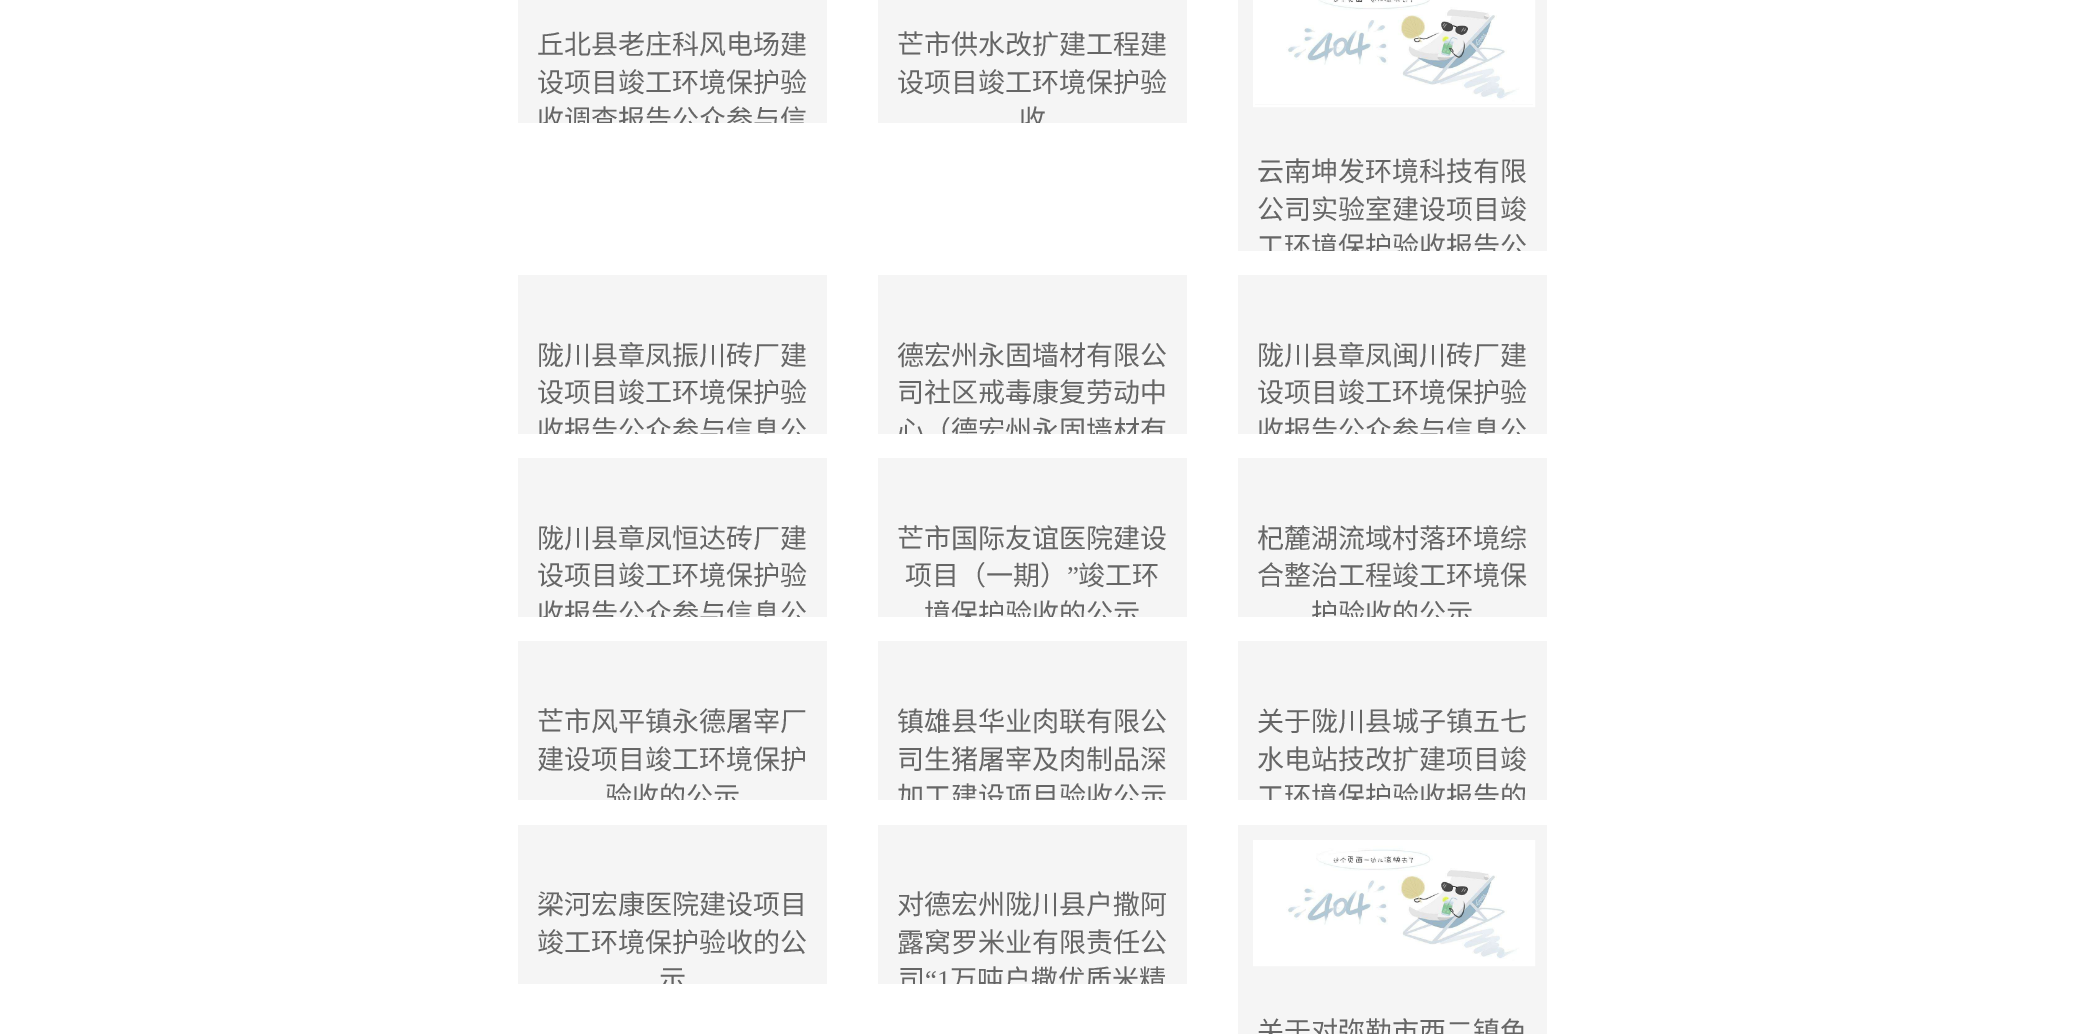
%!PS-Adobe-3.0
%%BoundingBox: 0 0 2085 1034
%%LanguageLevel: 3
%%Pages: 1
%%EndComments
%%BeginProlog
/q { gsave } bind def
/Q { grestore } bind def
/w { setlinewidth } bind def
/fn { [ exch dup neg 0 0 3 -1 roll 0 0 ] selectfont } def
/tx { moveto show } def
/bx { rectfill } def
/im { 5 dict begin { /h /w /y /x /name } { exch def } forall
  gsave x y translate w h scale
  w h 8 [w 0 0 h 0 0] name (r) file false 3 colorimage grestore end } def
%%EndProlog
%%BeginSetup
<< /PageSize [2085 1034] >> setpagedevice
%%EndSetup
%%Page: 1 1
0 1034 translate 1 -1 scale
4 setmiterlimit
1 setgray
0 0 2085 1034 bx
0.961 setgray
518 0 309 123 bx
/NotoSansCJKSC-Regular 27 fn
0.4 setgray
(丘北县老庄科风电场建) 537 54 tx
(设项目竣工环境保护验) 537 92 tx
q
518 0 309 123 rectclip
(收调查报告公众参与信) 537 129 tx
Q
0.961 setgray
878 0 309 123 bx
0.4 setgray
(芒市供水改扩建工程建) 897 54 tx
(设项目竣工环境保护验) 897 92 tx
q
878 0 309 123 rectclip
(收) 1019 129 tx
Q
0.961 setgray
1238 0 309 251 bx
1 setgray
2 w
1254 -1 280 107 rectstroke
(image0.raw) 1255 0 278 105 im
0.4 setgray
(云南坤发环境科技有限) 1257 181 tx
(公司实验室建设项目竣) 1257 219 tx
q
1238 0 309 251 rectclip
(工环境保护验收报告公) 1257 256 tx
Q
0.961 setgray
518 275 309 159 bx
0.4 setgray
(陇川县章凤振川砖厂建) 537 365 tx
(设项目竣工环境保护验) 537 402 tx
q
518 275 309 159 rectclip
(收报告公众参与信息公) 537 440 tx
Q
0.961 setgray
878 275 309 159 bx
0.4 setgray
(德宏州永固墙材有限公) 897 365 tx
(司社区戒毒康复劳动中) 897 402 tx
q
878 275 309 159 rectclip
(心（德宏州永固墙材有) 897 440 tx
Q
0.961 setgray
1238 275 309 159 bx
0.4 setgray
(陇川县章凤闽川砖厂建) 1257 365 tx
(设项目竣工环境保护验) 1257 402 tx
q
1238 275 309 159 rectclip
(收报告公众参与信息公) 1257 440 tx
Q
0.961 setgray
518 458 309 159 bx
0.4 setgray
(陇川县章凤恒达砖厂建) 537 548 tx
(设项目竣工环境保护验) 537 585 tx
q
518 458 309 159 rectclip
(收报告公众参与信息公) 537 623 tx
Q
0.961 setgray
878 458 309 159 bx
0.4 setgray
(芒市国际友谊医院建设) 897 548 tx
(项目（一期）) 905 585 tx
/LiberationSerif-Regular 27 fn
(”) 1067 585 tx
/NotoSansCJKSC-Regular 27 fn
(竣工环) 1078 585 tx
q
878 458 309 159 rectclip
(境保护验收的公示) 924 623 tx
Q
0.961 setgray
1238 458 309 159 bx
0.4 setgray
(杞麓湖流域村落环境综) 1257 548 tx
(合整治工程竣工环境保) 1257 585 tx
q
1238 458 309 159 rectclip
(护验收的公示) 1311 623 tx
Q
0.961 setgray
518 641 309 159 bx
0.4 setgray
(芒市风平镇永德屠宰厂) 537 731 tx
(建设项目竣工环境保护) 537 769 tx
q
518 641 309 159 rectclip
(验收的公示) 605 806 tx
Q
0.961 setgray
878 641 309 159 bx
0.4 setgray
(镇雄县华业肉联有限公) 897 731 tx
(司生猪屠宰及肉制品深) 897 769 tx
q
878 641 309 159 rectclip
(加工建设项目验收公示) 897 806 tx
Q
0.961 setgray
1238 641 309 159 bx
0.4 setgray
(关于陇川县城子镇五七) 1257 731 tx
(水电站技改扩建项目竣) 1257 769 tx
q
1238 641 309 159 rectclip
(工环境保护验收报告的) 1257 806 tx
Q
0.961 setgray
518 825 309 159 bx
0.4 setgray
(梁河宏康医院建设项目) 537 914 tx
(竣工环境保护验收的公) 537 952 tx
q
518 825 309 159 rectclip
(示) 659 989 tx
Q
0.961 setgray
878 825 309 159 bx
0.4 setgray
(对德宏州陇川县户撒阿) 897 914 tx
(露窝罗米业有限责任公) 897 952 tx
q
878 825 309 159 rectclip
(司) 898 989 tx
/LiberationSerif-Regular 27 fn
(“1) 925 989 tx
/NotoSansCJKSC-Regular 27 fn
(万吨户撒优质米精) 950 989 tx
Q
0.961 setgray
1238 825 309 209 bx
1 setgray
1254 841 280 124 rectstroke
(image1.raw) 1255 842 278 122 im
0.4 setgray
(关于对弥勒市西二镇色) 1257 1041 tx
showpage
%%EOF
